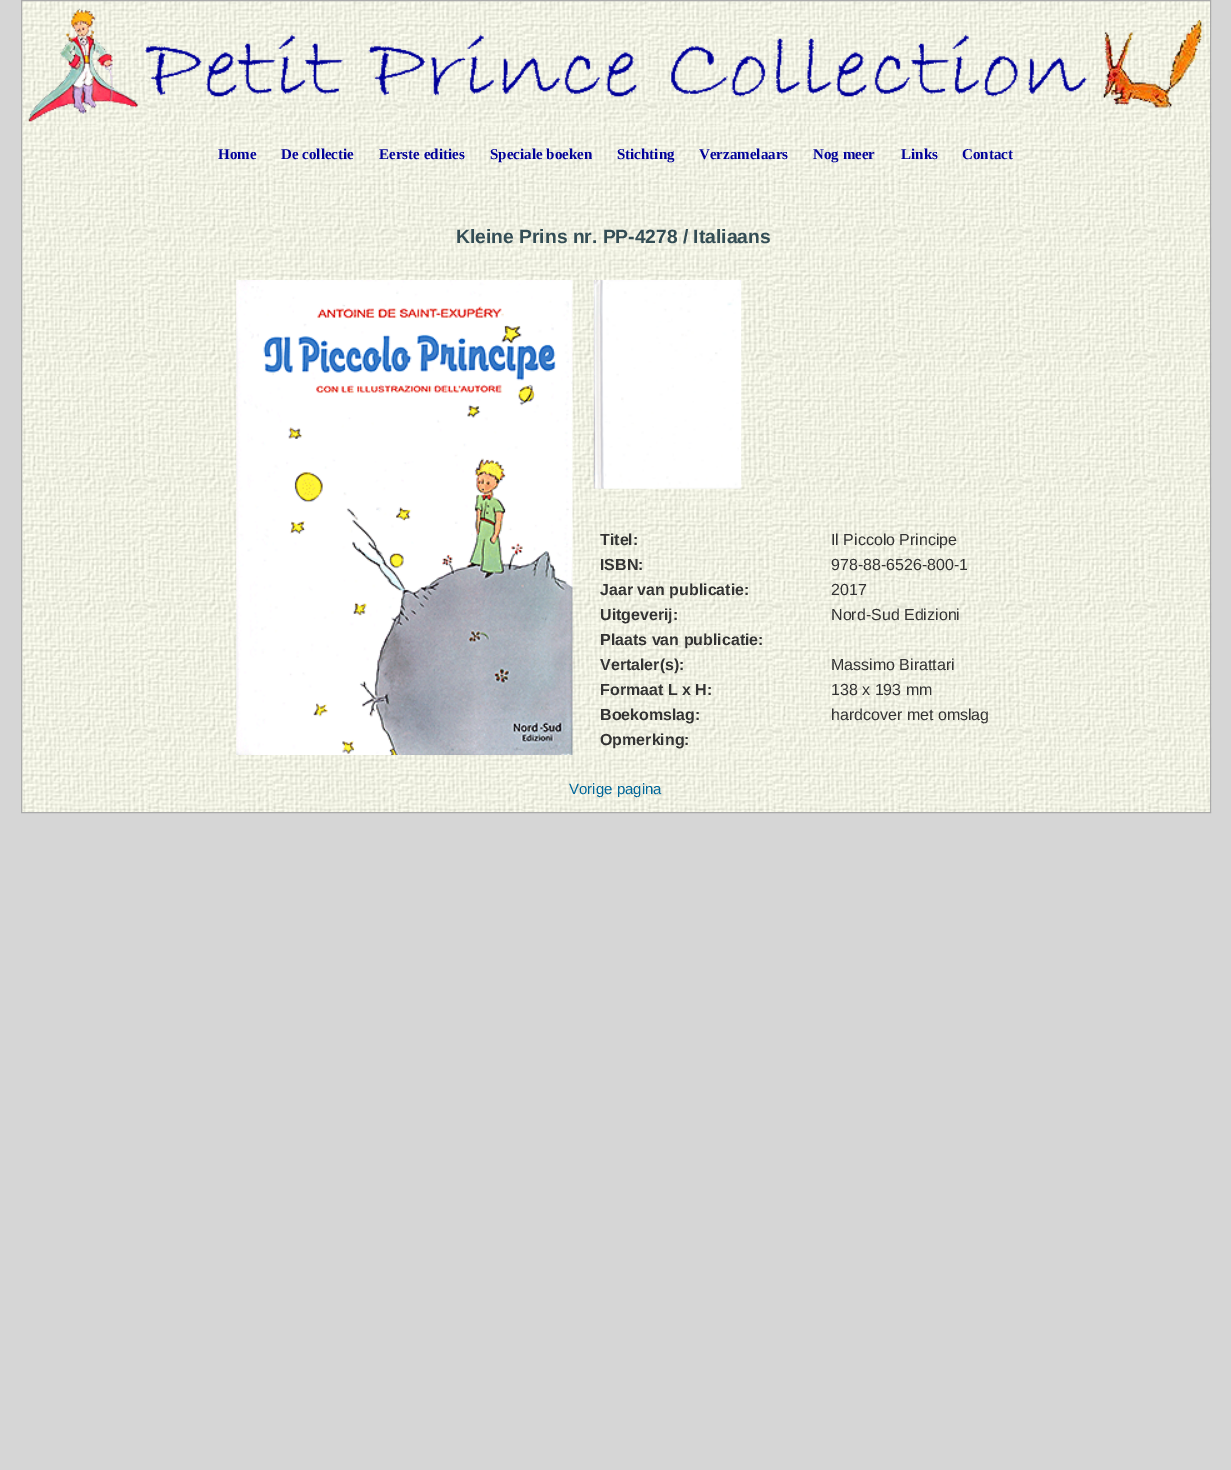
%!PS-Adobe-3.0
%%BoundingBox: 0 0 1231 1470
%%LanguageLevel: 3
%%Pages: 1
%%EndComments
%%BeginProlog
/fn { [ exch dup neg 0 0 3 -1 roll 0 0 ] selectfont } def
/tx { moveto show } def
/bx { rectfill } def
/im { 5 dict begin { /h /w /y /x /name } { exch def } forall
  gsave x y translate w h scale
  w h 8 [w 0 0 h 0 0] name (r) file false 3 colorimage grestore end } def
%%EndProlog
%%BeginSetup
<< /PageSize [1231 1470] >> setpagedevice
%%EndSetup
%%Page: 1 1
0 1470 translate 1 -1 scale
4 setmiterlimit
0.839 setgray
0 0 1231 1470 bx
(image0.raw) 22 0 1190 813 im
0.667 setgray
21.5 0.5 1189 812 rectstroke
(image1.raw) 28 8 1174 114 im
/LiberationSerif-Bold 15 fn
0 0 0.6 setrgbcolor
(Home) 218 159 tx
(De collectie) 281 159 tx
(Eerste edities) 379 159 tx
(Speciale boeken) 490 159 tx
(Stichting) 617 159 tx
(Verzamelaars) 699 159 tx
(Nog meer) 813 159 tx
(Links) 901 159 tx
(Contact) 962 159 tx
/LiberationSans-Bold 19.25 fn
0.2 0.302 0.333 setrgbcolor
(Kleine Prins nr. PP-4278 / Italiaans) 456 243 tx
(image2.raw) 236 280 337 475 im
(image3.raw) 593 280 149 209 im
/LiberationSans-Bold 16 fn
0.2 setgray
(Titel:) 600 545 tx
/LiberationSans-Regular 16 fn
(Il Piccolo Principe) 831 545 tx
/LiberationSans-Bold 16 fn
(ISBN:) 600 570 tx
/LiberationSans-Regular 16 fn
(978-88-6526-800-1) 831 570 tx
/LiberationSans-Bold 16 fn
(Jaar van publicatie:) 600 595 tx
/LiberationSans-Regular 16 fn
(2017) 831 595 tx
/LiberationSans-Bold 16 fn
(Uitgeverij:) 600 620 tx
/LiberationSans-Regular 16 fn
(Nord-Sud Edizioni) 831 620 tx
/LiberationSans-Bold 16 fn
(Plaats van publicatie:) 600 645 tx
(Vertaler\(s\):) 600 670 tx
/LiberationSans-Regular 16 fn
(Massimo Birattari) 831 670 tx
/LiberationSans-Bold 16 fn
(Formaat L x H:) 600 695 tx
/LiberationSans-Regular 16 fn
(138 x 193 mm) 831 695 tx
/LiberationSans-Bold 16 fn
(Boekomslag:) 600 720 tx
/LiberationSans-Regular 16 fn
(hardcover met omslag) 831 720 tx
/LiberationSans-Bold 16 fn
(Opmerking:) 600 745 tx
/LiberationSans-Regular 15 fn
0 0.4 0.6 setrgbcolor
(Vorige pagina) 569 794 tx
showpage
%%EOF
